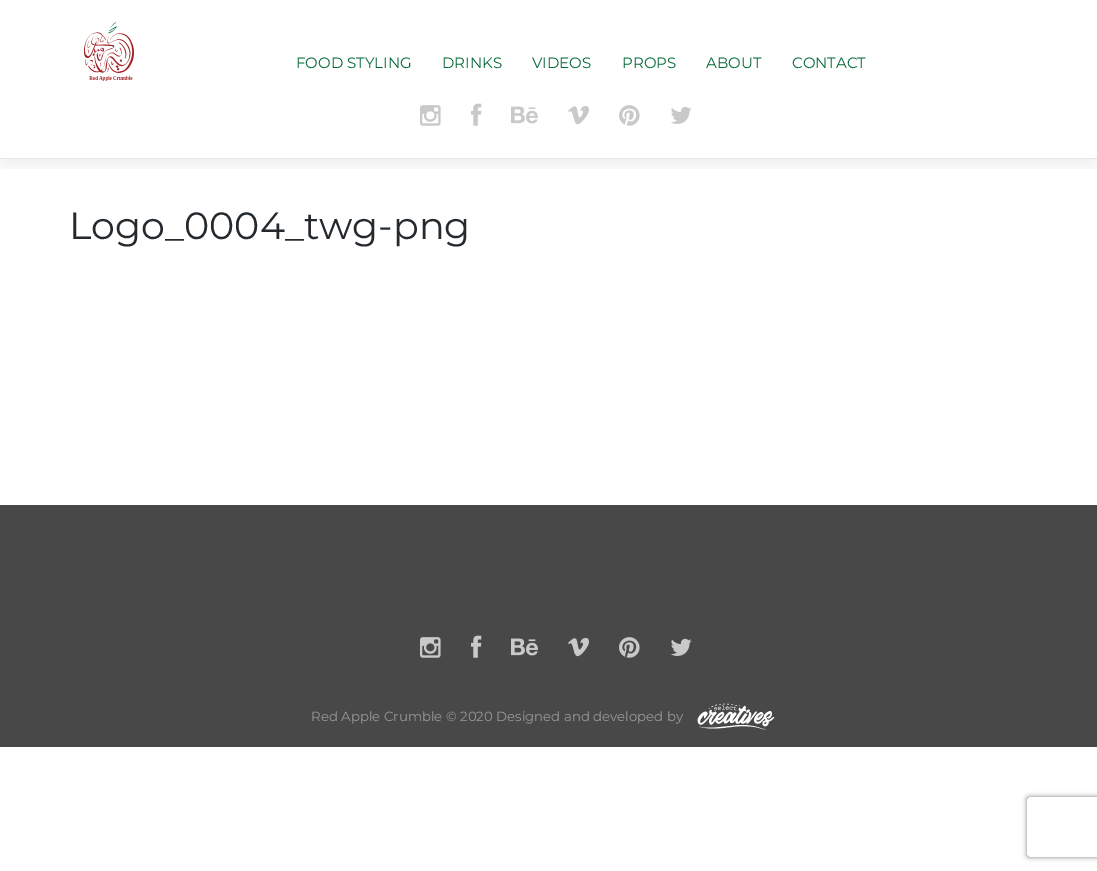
%!PS-Adobe-3.0
%%BoundingBox: 0 0 1097 871
%%LanguageLevel: 3
%%Pages: 1
%%EndComments
%%BeginProlog
/m { moveto } bind def
/l { lineto } bind def
/c { curveto } bind def
/h { closepath } bind def
/q { gsave } bind def
/Q { grestore } bind def
/fn { [ exch dup neg 0 0 3 -1 roll 0 0 ] selectfont } def
/tx { moveto show } def
/bx { rectfill } def
/al { dup .setfillconstantalpha .setstrokeconstantalpha } def
/rr { 5 dict begin { /r /h /w /y /x } { exch def } forall
  x r add y moveto x w add y 2 copy h add r arct x w add y h add x 1 index r arct
  x y h add x y r arct x y 2 copy exch w add exch r arct closepath end } def
/sh { 12 dict begin { /a /b /q /h /w /y /x } { exch def } forall gsave /was 0 def
  9 -2 -9 { dup b mul 4 div /e exch def 1 sub .425 mul 2.718 exch exp 1 add a .99 .min exch div /now exch def
    1 1 now sub 1 was sub div sub al /was now def
    w h .min e 2 mul add 0 gt { x e sub y e sub w e 2 mul add h e 2 mul add
      q e add b .6 mul add w h .min 2 div e add .min 0 .max rr fill } if } for grestore end } def
/im { 5 dict begin { /h /w /y /x /name } { exch def } forall
  gsave x y translate w h scale
  w h 8 [w 0 0 h 0 0] name (r) file false 3 colorimage grestore end } def
%%EndProlog
%%BeginSetup
<< /PageSize [1097 871] /PageUsesTransparency true >> setpagedevice
%%EndSetup
%%Page: 1 1
0 .pushpdf14devicefilter
0 871 translate 1 -1 scale
4 setmiterlimit
1 setgray
0 0 1097 871 bx
q
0 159 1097 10 rectclip
0 setgray
0 8 1097 159 0 7.5 0.05 sh
Q
0.902 setgray
0 158 1097 1 bx
(image0.raw) 84 22 50 59 im
/Montserrat-Thin 15 fn
0.012 0.412 0.208 setrgbcolor
(FOOD STYLING) 296 68 tx
(DRINKS) 442 68 tx
(VIDEOS) 532 68 tx
(PROPS) 622 68 tx
(ABOUT) 706 68 tx
(CONTACT) 792 68 tx
(image1.raw) 420 105 21 21 im
(image2.raw) 471 103 11 23 im
(image3.raw) 511 106 27 18 im
(image4.raw) 568 106 21 19 im
(image5.raw) 619 105 21 21 im
(image6.raw) 671 106 21 18 im
/Montserrat-Thin 38 fn
0.141 0.161 0.18 setrgbcolor
(Logo_0004_twg-png) 69 239 tx
0.282 setgray
0 505 1097 242 bx
(image7.raw) 420 637 21 21 im
(image8.raw) 471 635 11 23 im
(image9.raw) 511 638 27 18 im
(image10.raw) 568 638 21 19 im
(image11.raw) 619 637 21 21 im
(image12.raw) 670 638 22 18 im
/Montserrat-Thin 13.3 fn
0.6 0.592 0.612 setrgbcolor
(Red Apple Crumble © 2020 Designed and developed by) 311 721 tx
(image13.raw) 697 703 78 27 im
q
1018 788 m 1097 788 l 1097 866 l 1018 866 l h 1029 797 m 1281 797 l 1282 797 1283 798 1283 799 c 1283 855 l 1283 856 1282 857 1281 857 c 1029 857 l 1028 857 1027 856 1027 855 c 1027 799 l 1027 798 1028 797 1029 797 c h eoclip newpath
0.502 setgray
1027 797 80 60 2 2.5 1 sh
Q
.poppdf14devicefilter showpage
%%EOF
